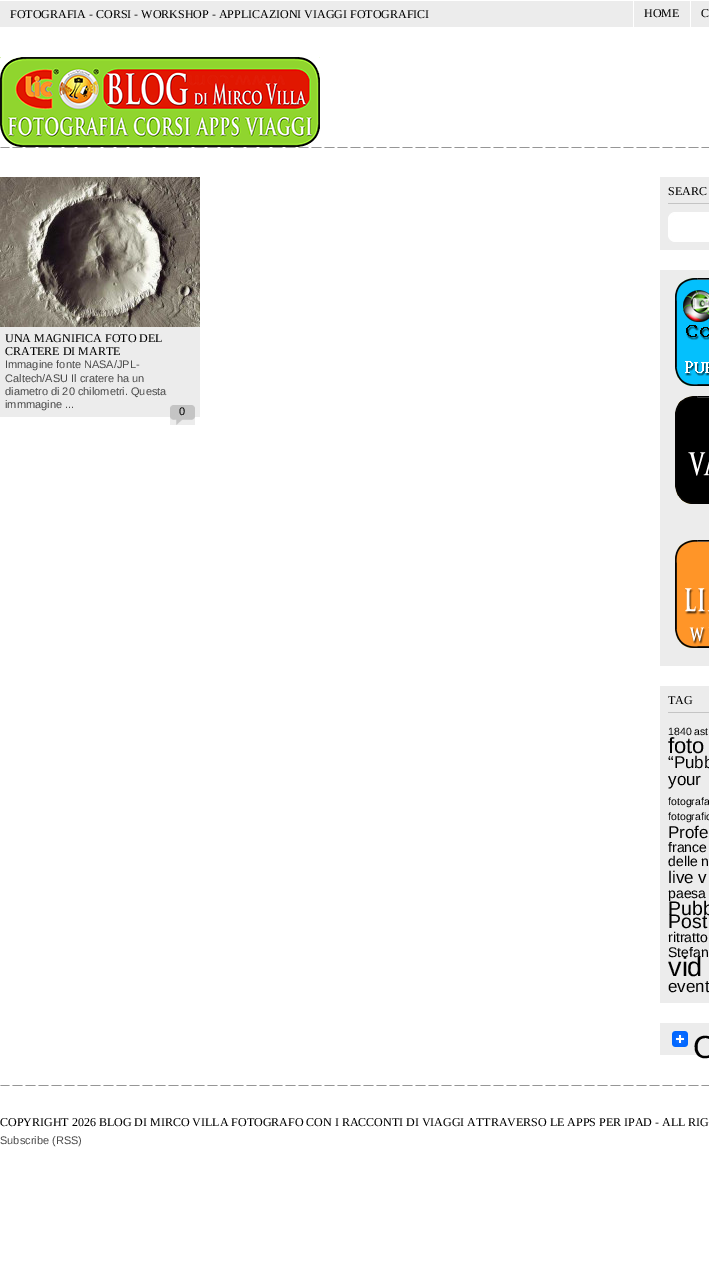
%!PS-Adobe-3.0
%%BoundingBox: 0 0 709 1287
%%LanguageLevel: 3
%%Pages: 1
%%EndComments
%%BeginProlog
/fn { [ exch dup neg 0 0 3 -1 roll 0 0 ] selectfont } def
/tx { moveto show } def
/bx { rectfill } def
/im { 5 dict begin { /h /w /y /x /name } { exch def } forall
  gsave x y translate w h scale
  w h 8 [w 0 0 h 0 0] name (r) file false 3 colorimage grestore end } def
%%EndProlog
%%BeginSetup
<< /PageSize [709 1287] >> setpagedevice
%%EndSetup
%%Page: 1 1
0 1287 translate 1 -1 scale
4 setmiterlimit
1 setgray
0 0 709 1287 bx
0.925 setgray
0 1 709 26 bx
/LiberationSerif-Regular 12 fn
0 setgray
(FOTOGRAFIA - CORSI - WORKSHOP - APPLICAZIONI VIAGGI FOTOGRAFICI) 10 18 tx
1 setgray
633 1 1 26 bx
0 setgray
(HOME) 644 17 tx
1 setgray
690 1 1 26 bx
0 setgray
(C) 701 17 tx
(image0.raw) 0 57 320 90 im
(image1.raw) 0 147 709 1 im
0.925 setgray
0 327 200 90 bx
(image2.raw) 0 177 200 150 im
0 setgray
(UNA MAGNIFICA FOTO DEL) 5 342 tx
(CRATERE DI MARTE) 5 355 tx
/LiberationSans-Regular 11 fn
0.29 setgray
(Immagine fonte NASA/JPL-) 5 368 tx
(Caltech/ASU Il cratere ha un) 5 382 tx
(diametro di 20 chilometri. Questa) 5 395 tx
(immmagine ...) 5 408 tx
(image3.raw) 170 405 25 20 im
0 setgray
(0) 179 415 tx
0.925 setgray
660 177 49 73 bx
0.769 setgray
668 203 41 1 bx
/LiberationSerif-Regular 12 fn
0 setgray
(SEARC) 668 195 tx
(image4.raw) 668 212 41 30 im
0.925 setgray
660 270 49 396 bx
(image5.raw) 675 278 34 108 im
(image6.raw) 675 396 34 108 im
(image7.raw) 675 540 34 108 im
660 686 49 317 bx
0.769 setgray
668 712 41 1 bx
0 setgray
(TAG) 668 704 tx
/LiberationSans-Regular 10.5 fn
(1840 ast) 668 735 tx
/LiberationSans-Regular 22 fn
(foto) 668 753 tx
/LiberationSans-Regular 17 fn
(“Pubb) 668 768 tx
(your) 668 785 tx
/LiberationSans-Regular 10.5 fn
(fotografa) 668 805 tx
(fotografic) 668 820 tx
/LiberationSans-Regular 17 fn
(Profe) 668 838 tx
/LiberationSans-Regular 14 fn
(france) 668 852 tx
(delle n) 668 866 tx
/LiberationSans-Regular 17 fn
(live v) 668 883 tx
/LiberationSans-Regular 14 fn
(paesa) 668 898 tx
/LiberationSans-Regular 19.5 fn
(Pubb) 668 915 tx
(Post) 668 928 tx
/LiberationSans-Regular 14 fn
(ritratto) 668 942 tx
(Stefan) 668 957 tx
/LiberationSans-Regular 27 fn
(vid) 668 976 tx
/LiberationSans-Regular 17 fn
(event) 668 992 tx
0.925 setgray
660 1023 49 32 bx
(image8.raw) 672 1031 16 16 im
/LiberationSans-Regular 32 fn
0 setgray
(C) 693 1058 tx
(image1.raw) 0 1085 709 1 im
/LiberationSerif-Regular 12 fn
(COPYRIGHT 2026 BLOG DI MIRCO VILLA FOTOGRAFO CON I RACCONTI DI VIAGGI ATTRAVERSO LE APPS PER IPAD - ALL RIG) 0 1126 tx
/LiberationSans-Regular 11 fn
0.29 setgray
(Subscribe \(RSS\)) 0 1144 tx
showpage
%%EOF
